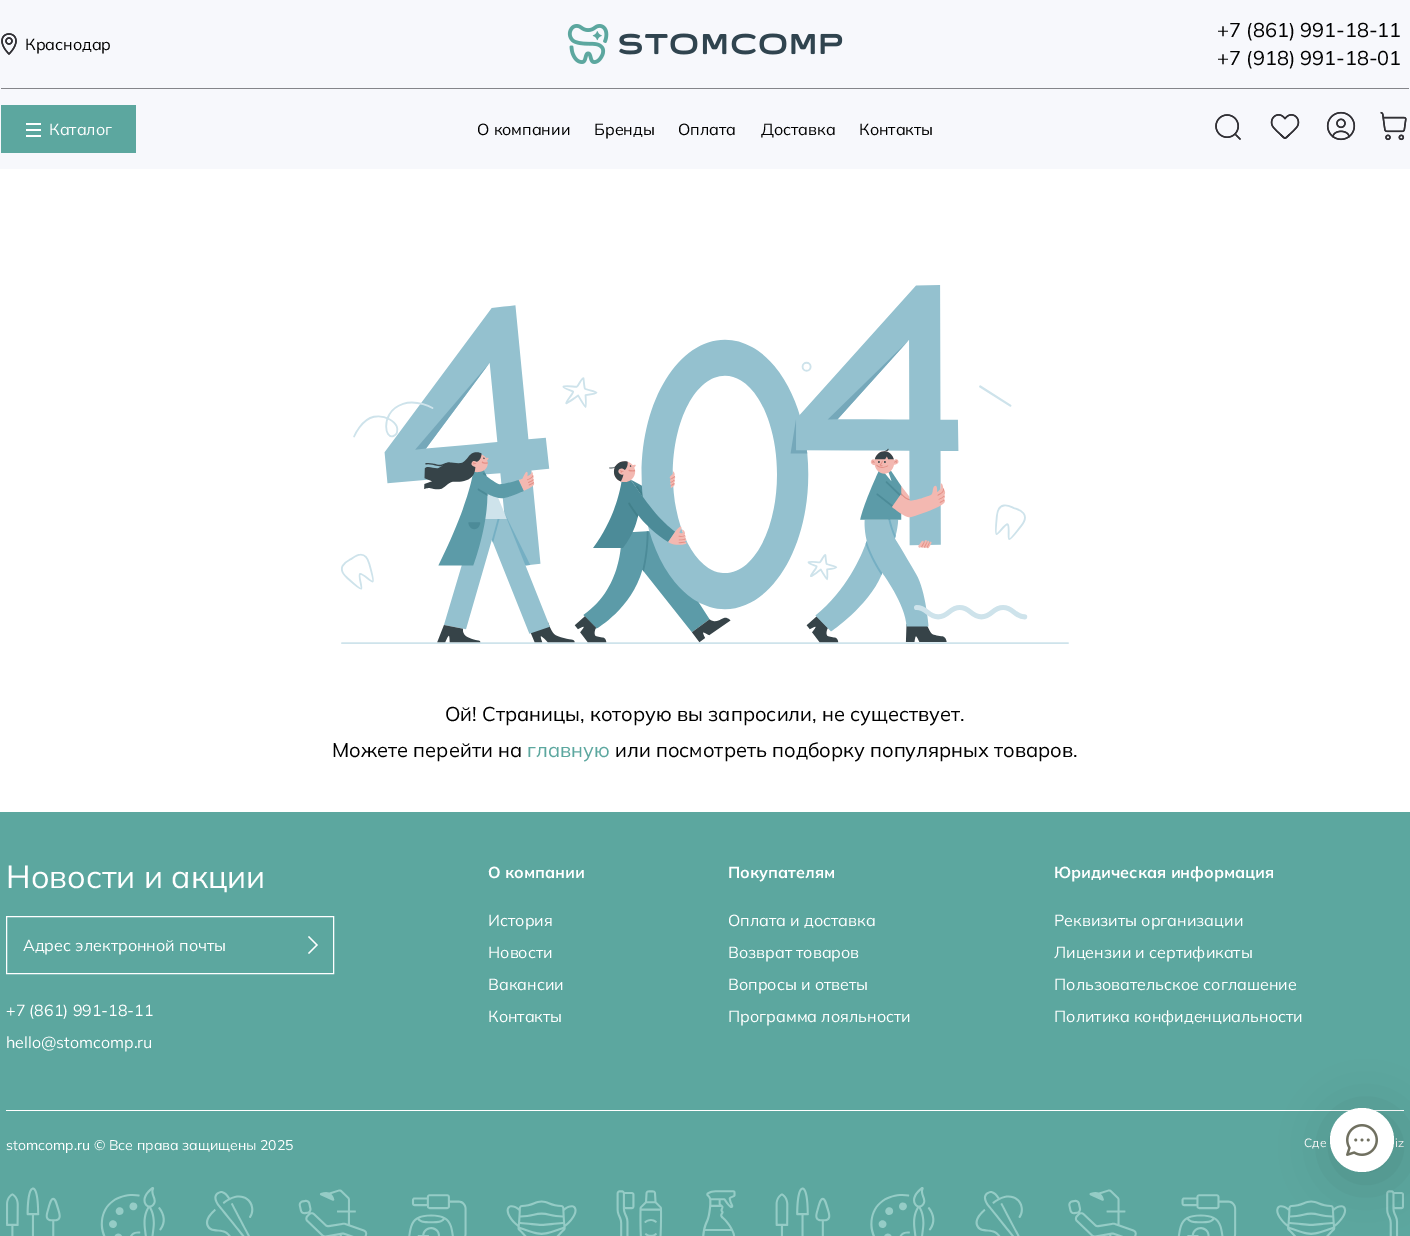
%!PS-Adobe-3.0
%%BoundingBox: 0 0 1410 1236
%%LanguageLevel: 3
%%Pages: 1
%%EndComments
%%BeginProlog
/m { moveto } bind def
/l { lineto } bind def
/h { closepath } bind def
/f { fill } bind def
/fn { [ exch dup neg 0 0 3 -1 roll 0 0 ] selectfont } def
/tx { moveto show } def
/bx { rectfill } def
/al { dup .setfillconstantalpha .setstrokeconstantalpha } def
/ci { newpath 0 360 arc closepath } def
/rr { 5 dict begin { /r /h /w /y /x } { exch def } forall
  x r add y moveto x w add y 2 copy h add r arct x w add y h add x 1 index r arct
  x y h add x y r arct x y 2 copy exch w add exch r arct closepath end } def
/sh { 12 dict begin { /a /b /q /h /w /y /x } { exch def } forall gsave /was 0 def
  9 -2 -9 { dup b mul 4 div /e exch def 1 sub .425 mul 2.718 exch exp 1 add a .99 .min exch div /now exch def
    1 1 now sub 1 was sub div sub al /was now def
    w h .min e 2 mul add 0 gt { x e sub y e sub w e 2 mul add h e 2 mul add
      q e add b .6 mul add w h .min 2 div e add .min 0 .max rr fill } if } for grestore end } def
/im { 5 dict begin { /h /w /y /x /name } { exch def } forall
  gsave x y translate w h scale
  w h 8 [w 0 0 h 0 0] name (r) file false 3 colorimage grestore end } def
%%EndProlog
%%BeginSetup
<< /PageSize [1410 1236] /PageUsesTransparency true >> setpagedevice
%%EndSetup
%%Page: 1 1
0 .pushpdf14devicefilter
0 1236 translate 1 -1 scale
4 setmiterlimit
1 setgray
0 0 1410 1236 bx
0.969 0.973 0.988 setrgbcolor
0 0 1410 169 bx
0.518 0.522 0.541 setrgbcolor
1 88 1408 1 bx
(image0.raw) 1 33 16 22 im
/Mulish-Regular 16 fn
0 setgray
(Краснодар) 25 50 tx
(image1.raw) 567 24 276 40 im
/Mulish-Regular 20 fn
(+7 \(861\) 991-18-11) 1217 37 tx
(+7 \(918\) 991-18-01) 1217 65 tx
0.361 0.655 0.624 setrgbcolor
1 105 135 48 bx
1 setgray
26 123 15 2 bx
26 129 15 2 bx
26 135 15 2 bx
/Mulish-Regular 16 fn
(Каталог) 49 135 tx
0 setgray
(О компании) 477 135 tx
(Бренды) 594 135 tx
(Оплата) 678 135 tx
(Доставка) 761 135 tx
(Контакты) 859 135 tx
(image2.raw) 1215 114 26 26 im
(image3.raw) 1270 114 30 25 im
(image4.raw) 1326 111 30 30 im
(image5.raw) 1380 111 27 30 im
(image6.raw) 341 285 728 359 im
/Mulish-Regular 20 fn
(Ой! Страницы, которую вы запросили, не существует.) 445 721 tx
(Можете перейти на) 332 757 tx
0.361 0.655 0.624 setrgbcolor
(главную) 527 757 tx
0 setgray
(или посмотреть подборку популярных товаров.) 615 757 tx
0.361 0.655 0.624 setrgbcolor
0 812 1410 424 bx
(image7.raw) 6 1187 1398 49 im
/Mulish-Regular 32 fn
1 setgray
(Новости и акции) 6 888 tx
6.5 916.5 327 57 rectstroke
/Mulish-Regular 16 fn
(Адрес электронной почты) 23 951 tx
318 945 m 309 954 l 308 953 l 316 945 l 308 937 l 309 936 l h eofill
(+7 \(861\) 991-18-11) 6 1016 tx
(hello@stomcomp.ru) 6 1048 tx
/Mulish-Bold 16 fn
(О компании) 488 878 tx
/Mulish-Regular 16 fn
(История) 488 926 tx
(Новости) 488 958 tx
(Вакансии) 488 990 tx
(Контакты) 488 1022 tx
/Mulish-Bold 16 fn
(Покупателям) 728 878 tx
/Mulish-Regular 16 fn
(Оплата и доставка) 728 926 tx
(Возврат товаров) 728 958 tx
(Вопросы и ответы) 728 990 tx
(Программа лояльности) 728 1022 tx
/Mulish-Bold 16 fn
(Юридическая информация) 1054 878 tx
/Mulish-Regular 16 fn
(Реквизиты организации) 1054 926 tx
(Лицензии и сертификаты) 1054 958 tx
(Пользовательское соглашение) 1054 990 tx
(Политика конфиденциальности) 1054 1022 tx
6 1110 1398 1 bx
/Mulish-Regular 14 fn
(stomcomp.ru © Все права защищены 2025) 6 1150 tx
/Mulish-Regular 12 fn
(Сде) 1304 1147 tx
(iz) 1395 1147 tx
0 setgray
1334 1115 64 64 32 25 0.15 sh
1 setgray
1362 1140 32 ci f
(image8.raw) 1346 1124 32 32 im
.poppdf14devicefilter showpage
%%EOF
